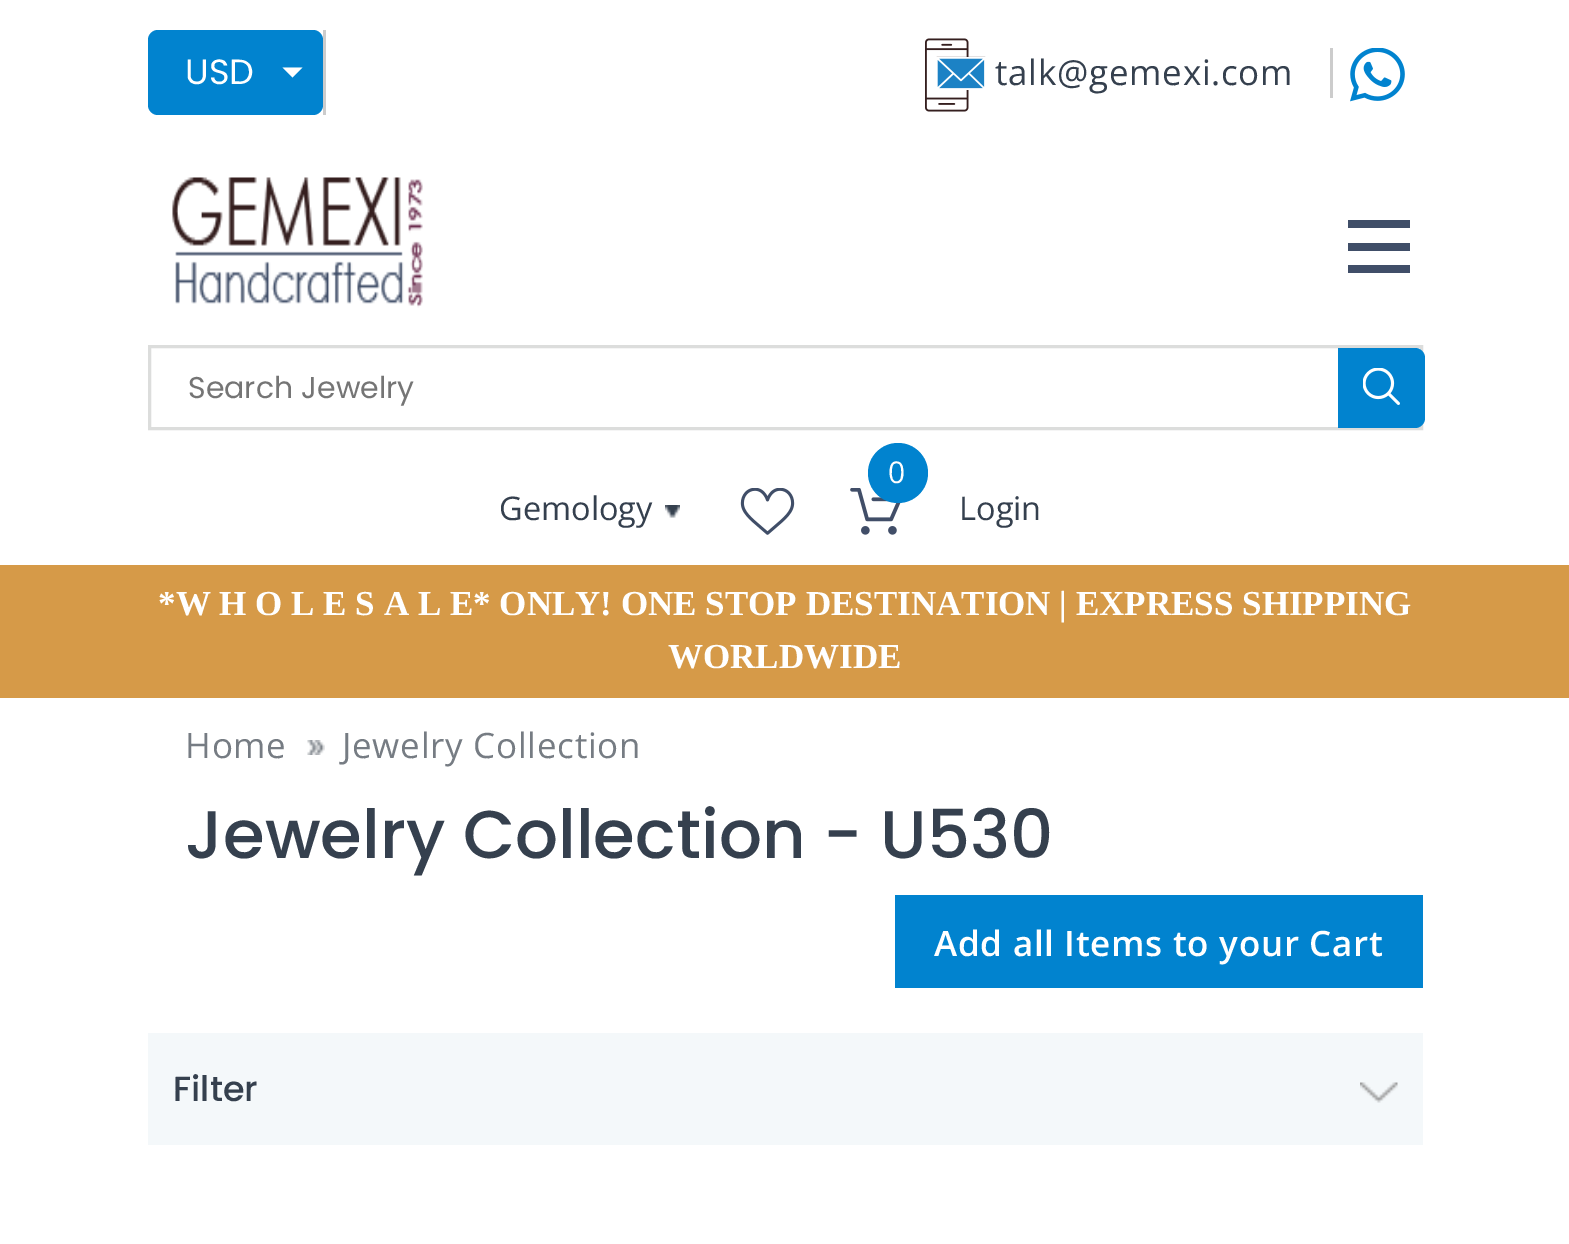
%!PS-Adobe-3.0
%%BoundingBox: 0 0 1569 1244
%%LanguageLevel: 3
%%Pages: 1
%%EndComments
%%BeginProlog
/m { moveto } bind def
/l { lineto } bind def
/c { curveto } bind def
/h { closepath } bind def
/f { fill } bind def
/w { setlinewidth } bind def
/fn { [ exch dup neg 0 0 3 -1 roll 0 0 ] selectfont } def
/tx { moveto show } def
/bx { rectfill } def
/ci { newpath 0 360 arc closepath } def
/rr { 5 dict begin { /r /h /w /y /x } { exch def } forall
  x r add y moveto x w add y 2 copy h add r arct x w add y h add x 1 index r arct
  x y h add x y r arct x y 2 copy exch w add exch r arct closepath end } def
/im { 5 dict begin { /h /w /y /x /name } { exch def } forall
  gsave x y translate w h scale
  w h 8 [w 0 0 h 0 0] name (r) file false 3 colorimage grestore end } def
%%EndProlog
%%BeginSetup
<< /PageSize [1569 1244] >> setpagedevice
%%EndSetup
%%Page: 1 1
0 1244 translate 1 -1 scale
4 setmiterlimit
1 setgray
0 0 1569 1244 bx
0.8 setgray
323 30 3 85 bx
0.004 0.514 0.812 setrgbcolor
148 30 175 85 10 rr f
/Poppins-Regular 35 fn
1 setgray
(USD) 185 84 tx
282.5 67.5 m 302.5 67.5 l 292.5 77.5 l h f
(image0.raw) 925 38 61 74 im
/OpenSans-Regular 35 fn
0.208 0.251 0.306 setrgbcolor
995 85 m 0.7 0 (talk@gemexi.com) ashow
0.8 setgray
1330 48 3 50 bx
(image1.raw) 1350 48 55 54 im
(image2.raw) 172 177 251 131 im
0.251 0.306 0.408 setrgbcolor
1348 220 62 8 bx
1348 243 62 8 bx
1348 265 62 8 bx
0.863 0.867 0.863 setrgbcolor
3 w
149.5 346.5 1272 82 rectstroke
/Poppins-Regular 30 fn
0.459 setgray
(Search Jewelry) 188 398 tx
0.004 0.514 0.812 setrgbcolor
1338 348 m 1415 348 l 1420.5 348 1425 352.5 1425 358 c 1425 418 l 1425 423.5 1420.5 428 1415 428 c 1338 428 l h f
(image3.raw) 1363 368 37 37 im
(image4.raw) 850 488 51 47 im
898 473 30 ci f
/OpenSans-Regular 30 fn
1 setgray
(0) 888 483 tx
/OpenSans-Regular 32.5 fn
0.208 0.251 0.306 setrgbcolor
(Gemology) 499 520 tx
(image5.raw) 665 505 15 13 im
(image6.raw) 740 488 55 47 im
(Login) 959 520 tx
0.839 0.604 0.282 setrgbcolor
0 565 1569 133 bx
/LiberationSerif-Bold 35 fn
1 setgray
(*W H O L E S A L E* ONLY! ONE STOP DESTINATION | EXPRESS SHIPPING) 158 615 tx
(WORLDWIDE) 668 668 tx
/OpenSans-Regular 35 fn
0.463 0.486 0.514 setrgbcolor
185 758 m 0.7 0 (Home) ashow
(image7.raw) 307 740 18 15 im
342 758 m 0.7 0 (Jewelry Collection) ashow
/Poppins-Medium 67.5 fn
0.208 0.251 0.306 setrgbcolor
(Jewelry Collection - U530) 185 858 tx
0.004 0.514 0.812 setrgbcolor
895 895 528 93 bx
/OpenSans-SemiBold 35 fn
1 setgray
934 956 m 0.7 0 (Add all Items to your Cart) ashow
0.957 0.973 0.98 setrgbcolor
148 1033 1275 112 bx
/Poppins-Medium 35 fn
0.208 0.251 0.306 setrgbcolor
(Filter) 173 1101 tx
(image8.raw) 1360 1082 38 21 im
showpage
%%EOF
